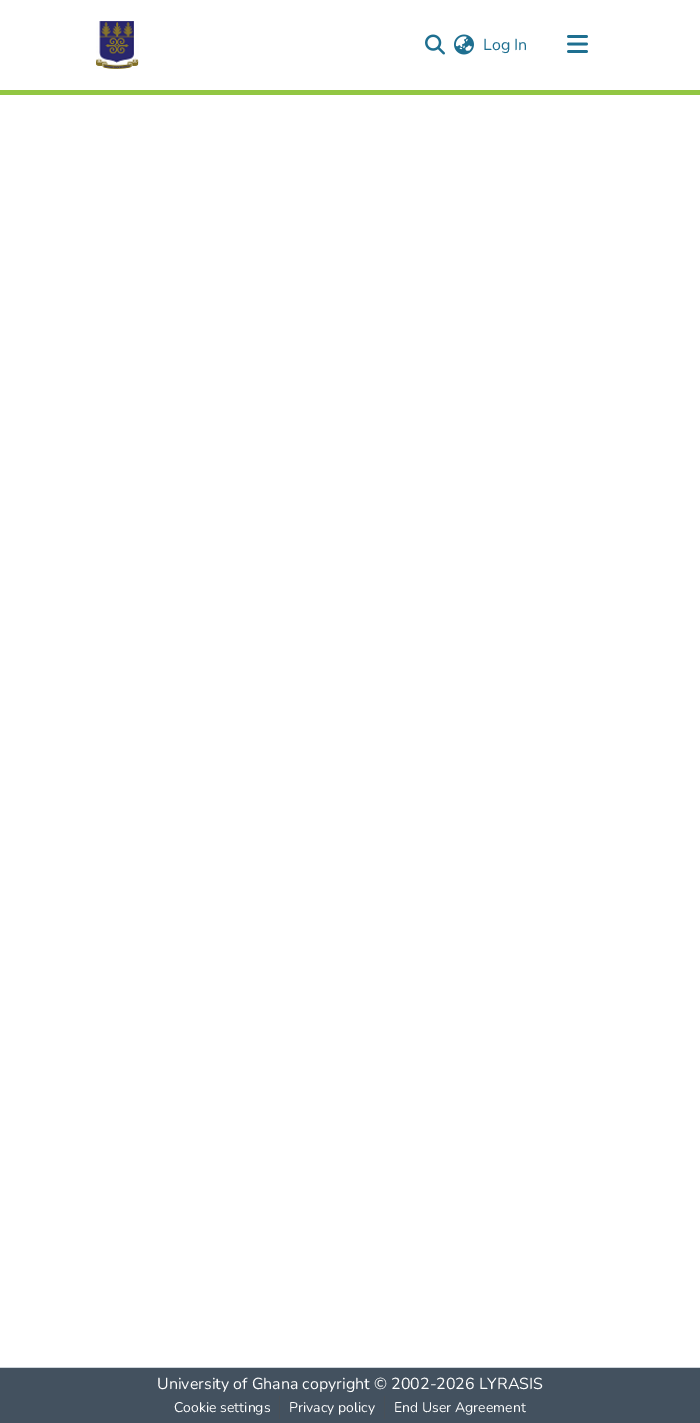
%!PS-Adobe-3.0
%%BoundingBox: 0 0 700 1423
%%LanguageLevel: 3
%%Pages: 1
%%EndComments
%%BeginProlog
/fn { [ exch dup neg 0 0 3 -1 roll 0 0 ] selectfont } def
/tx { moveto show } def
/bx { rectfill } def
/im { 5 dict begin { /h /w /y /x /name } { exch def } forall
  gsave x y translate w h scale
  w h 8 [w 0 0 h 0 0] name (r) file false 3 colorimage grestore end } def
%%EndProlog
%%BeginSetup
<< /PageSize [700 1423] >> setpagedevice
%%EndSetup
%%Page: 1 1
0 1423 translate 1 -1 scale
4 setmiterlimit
1 setgray
0 0 700 1423 bx
0.573 0.776 0.259 setrgbcolor
0 90 700 5 bx
(image0.raw) 96 21 43 48 im
(image1.raw) 425 34 20 21 im
(image2.raw) 454 34 20 21 im
/Nunito-Regular 16 fn
0.118 0.435 0.565 setrgbcolor
(Log In) 483 50 tx
(image3.raw) 567 35 21 18 im
0.263 0.318 0.373 setrgbcolor
0 1368 700 55 bx
0.808 0.831 0.855 setrgbcolor
0 1367 700 1 bx
1 setgray
(University of Ghana copyright © 2002-2026 LYRASIS) 157 1389 tx
/Nunito-Regular 14 fn
(Cookie settings) 174 1412 tx
0.286 0.314 0.341 setrgbcolor
279 1396 1 23 bx
1 setgray
(Privacy policy) 289 1412 tx
0.286 0.314 0.341 setrgbcolor
384 1396 1 23 bx
1 setgray
(End User Agreement) 394 1412 tx
showpage
%%EOF
